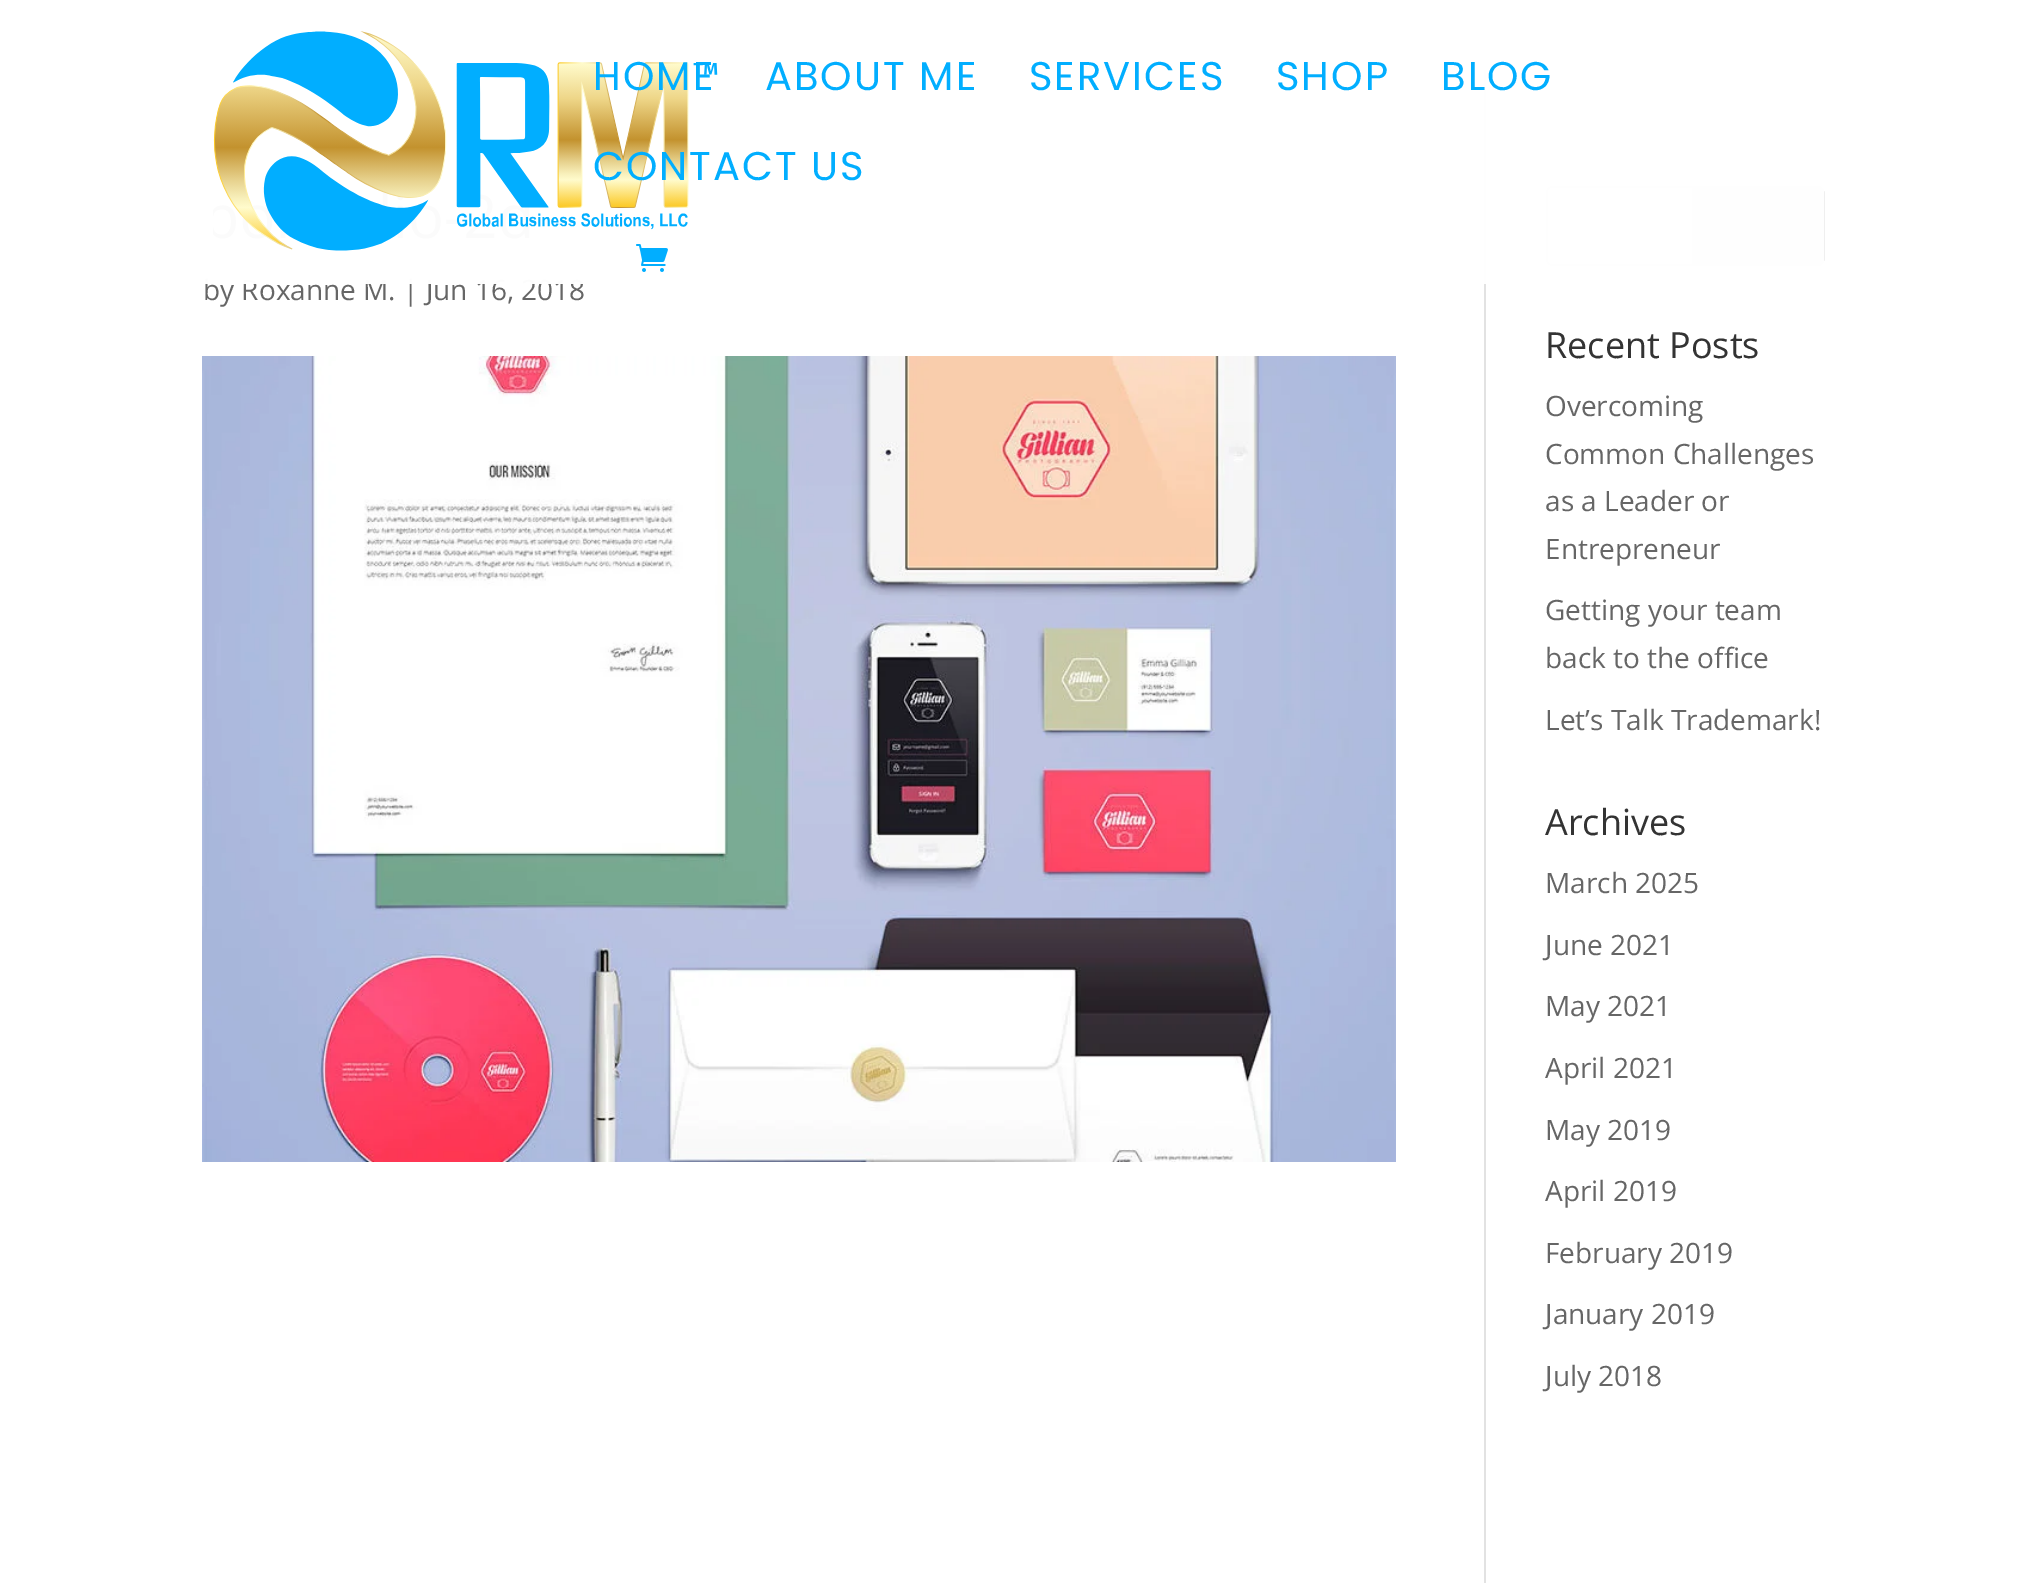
%!PS-Adobe-3.0
%%BoundingBox: 0 0 2025 1583
%%LanguageLevel: 3
%%Pages: 1
%%EndComments
%%BeginProlog
/m { moveto } bind def
/l { lineto } bind def
/c { curveto } bind def
/h { closepath } bind def
/f { fill } bind def
/S { stroke } bind def
/q { gsave } bind def
/Q { grestore } bind def
/w { setlinewidth } bind def
/fn { [ exch dup neg 0 0 3 -1 roll 0 0 ] selectfont } def
/tx { moveto show } def
/bx { rectfill } def
/al { dup .setfillconstantalpha .setstrokeconstantalpha } def
/rr { 5 dict begin { /r /h /w /y /x } { exch def } forall
  x r add y moveto x w add y 2 copy h add r arct x w add y h add x 1 index r arct
  x y h add x y r arct x y 2 copy exch w add exch r arct closepath end } def
/im { 5 dict begin { /h /w /y /x /name } { exch def } forall
  gsave x y translate w h scale
  w h 8 [w 0 0 h 0 0] name (r) file false 3 colorimage grestore end } def
%%EndProlog
%%BeginSetup
<< /PageSize [2025 1583] /PageUsesTransparency true >> setpagedevice
%%EndSetup
%%Page: 1 1
0 .pushpdf14devicefilter
0 1583 translate 1 -1 scale
4 setmiterlimit
1 setgray
0 0 2025 1583 bx
0.886 setgray
1484 70 2 1513 bx
/OpenSans-Regular 28 fn
0.4 setgray
(by Roxanne M. | Jun 16, 2018) 203 300 tx
0.867 setgray
2 w
1547 187 276 78 5 rr S
1693 187 m 1818 187 l 1821 187 1823 189 1823 192 c 1823 260 l 1823 263 1821 265 1818 265 c 1693 265 l h q f Q
S
0.98 al
1 setgray
205 70 1619 214 bx
1 al
(image0.raw) 213 31 505 220 im
/Poppins-Regular 40 fn
0.004 0.682 1 setrgbcolor
593 90 m 2 0 (HOME) ashow
765 90 m 2 0 (ABOUT ME) ashow
1029 90 m 2 0 (SERVICES) ashow
1276 90 m 2 0 (SHOP) ashow
1441 90 m 2 0 (BLOG) ashow
593 180 m 2 0 (CONTACT US) ashow
(image1.raw) 636 244 32 28 im
(image2.raw) 202 356 1194 806 im
/OpenSans-Regular 36 fn
0.2 setgray
(Recent Posts) 1545 358 tx
/OpenSans-Regular 28 fn
0.4 setgray
(Overcoming) 1545 416 tx
(Common Challenges) 1545 464 tx
(as a Leader or) 1545 511 tx
(Entrepreneur) 1545 559 tx
(Getting your team) 1545 620 tx
(back to the office) 1545 668 tx
(Let’s Talk Trademark!) 1545 730 tx
/OpenSans-Regular 36 fn
0.2 setgray
(Archives) 1545 835 tx
/OpenSans-Regular 28 fn
0.4 setgray
(March 2025) 1545 893 tx
(June 2021) 1545 955 tx
(May 2021) 1545 1016 tx
(April 2021) 1545 1078 tx
(May 2019) 1545 1140 tx
(April 2019) 1545 1201 tx
(February 2019) 1545 1263 tx
(January 2019) 1545 1324 tx
(July 2018) 1545 1386 tx
.poppdf14devicefilter showpage
%%EOF
